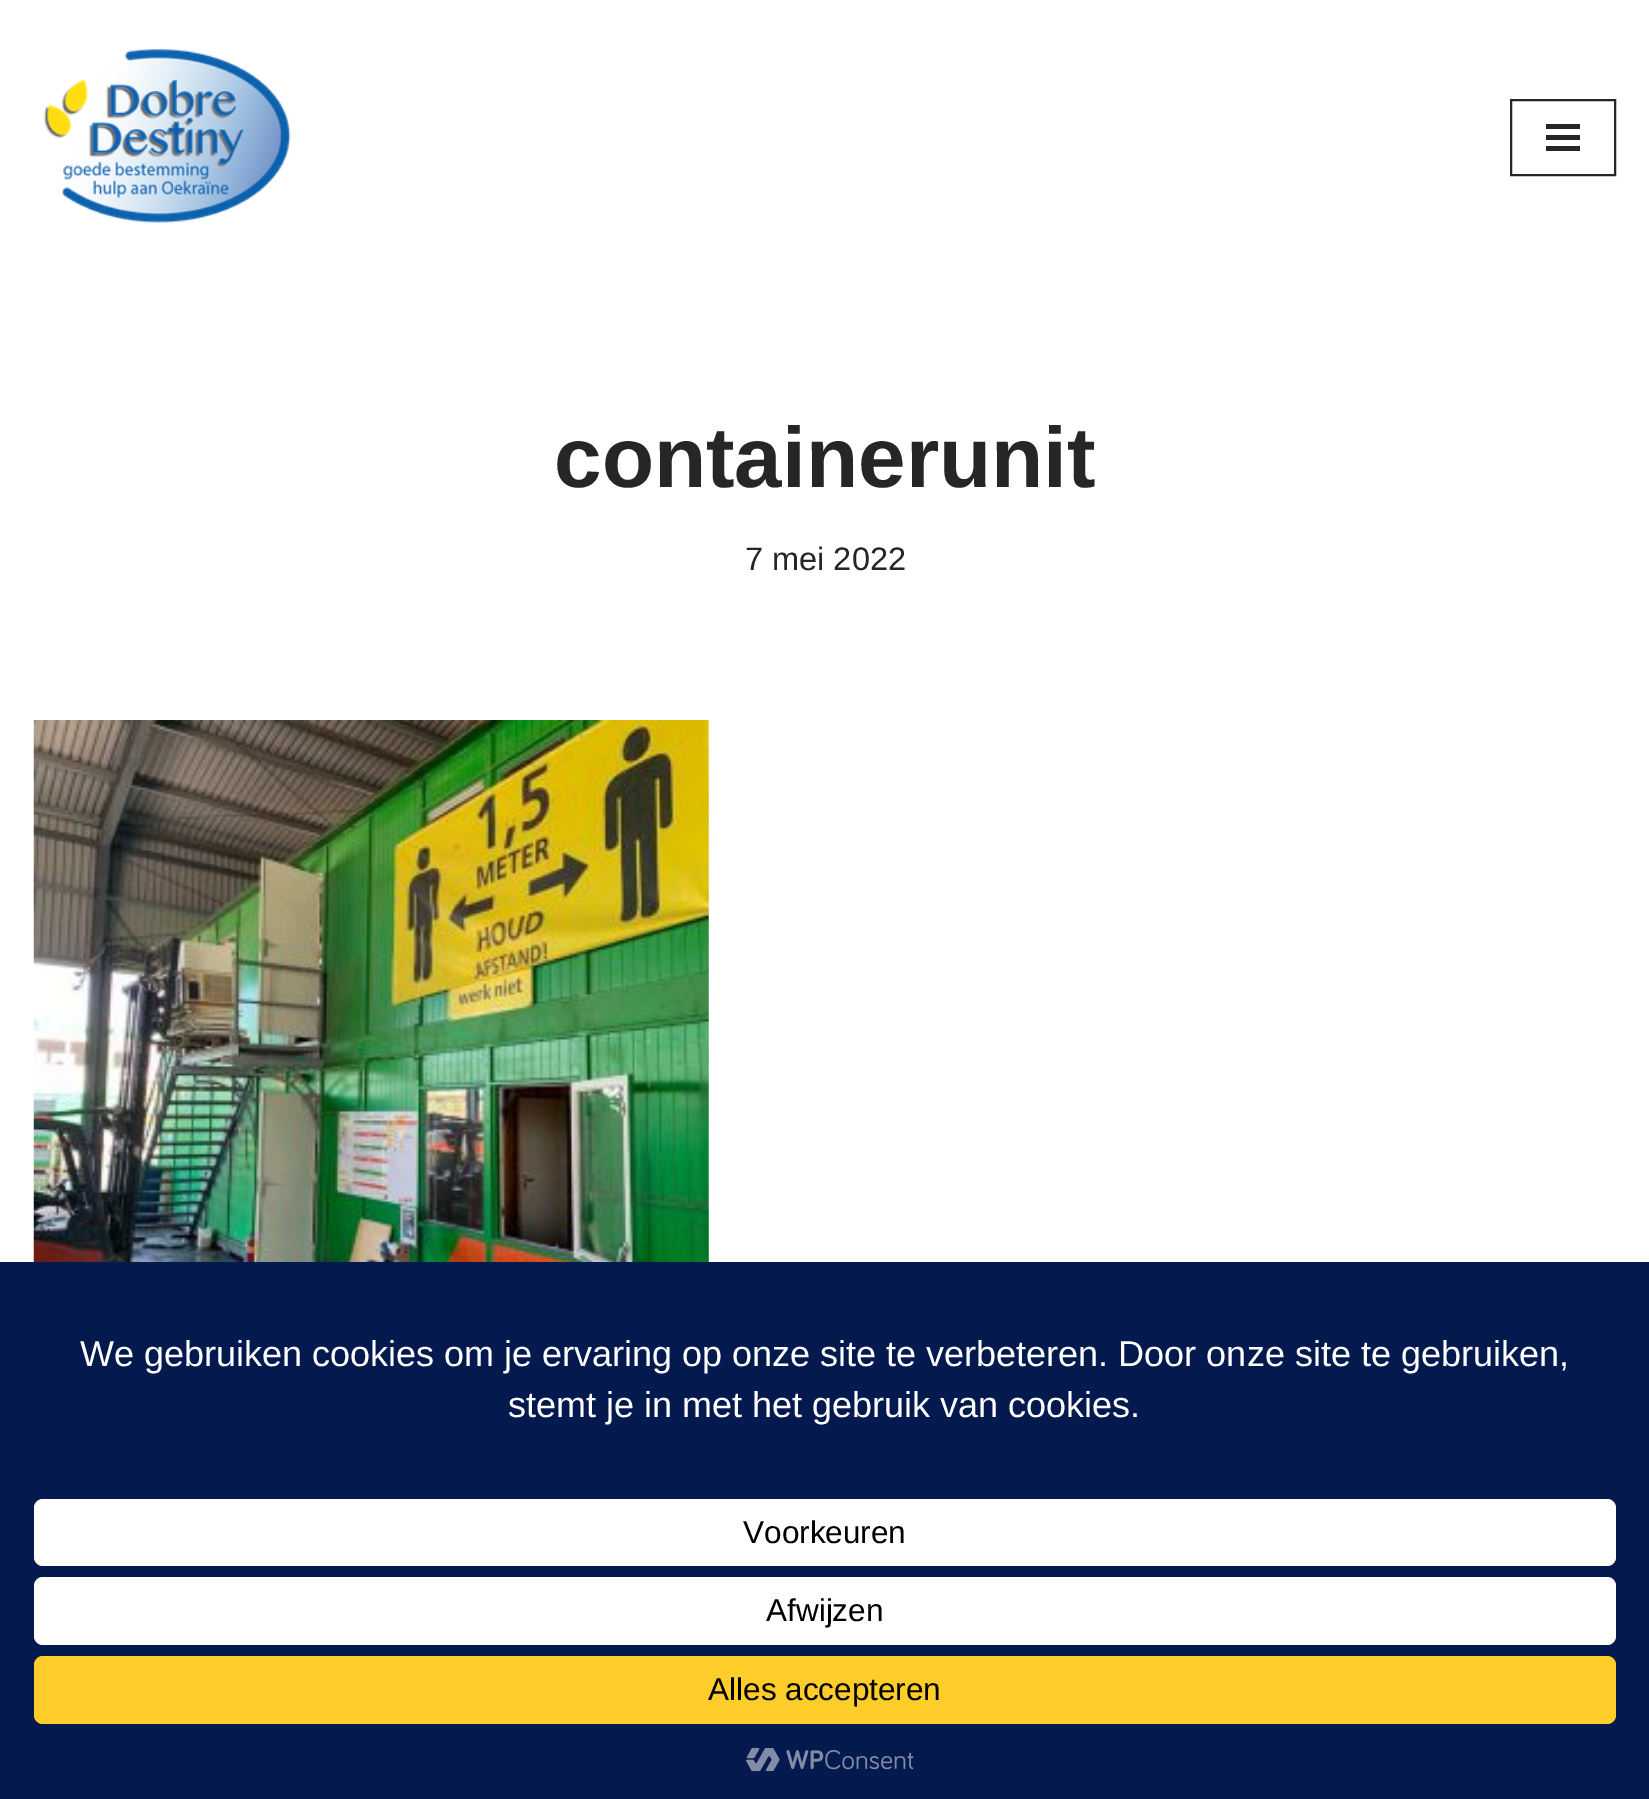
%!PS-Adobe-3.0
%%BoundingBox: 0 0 1649 1799
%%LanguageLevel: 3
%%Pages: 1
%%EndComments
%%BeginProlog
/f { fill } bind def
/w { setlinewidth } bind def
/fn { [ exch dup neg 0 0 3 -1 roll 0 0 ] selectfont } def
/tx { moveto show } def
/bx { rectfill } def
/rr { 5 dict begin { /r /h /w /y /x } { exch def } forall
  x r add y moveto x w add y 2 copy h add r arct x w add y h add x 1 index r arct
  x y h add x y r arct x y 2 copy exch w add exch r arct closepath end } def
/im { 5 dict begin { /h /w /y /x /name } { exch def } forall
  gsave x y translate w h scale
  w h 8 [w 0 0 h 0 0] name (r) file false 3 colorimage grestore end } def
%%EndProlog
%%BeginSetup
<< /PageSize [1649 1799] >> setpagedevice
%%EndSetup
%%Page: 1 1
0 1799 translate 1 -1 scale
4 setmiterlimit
1 setgray
0 0 1649 1799 bx
(image0.raw) 44 49 247 174 im
0.153 0.149 0.149 setrgbcolor
2 w
1511 100 104 75 rectstroke
1546 124 34 5 bx
1546 135 34 5 bx
1546 146 34 5 bx
/LiberationSans-Bold 85.5 fn
(containerunit) 554 487 tx
/LiberationSans-Regular 32.5 fn
(7 mei 2022) 745 570 tx
(image1.raw) 33 720 676 542 im
0.016 0.098 0.306 setrgbcolor
0 1262 1649 537 bx
/LiberationSans-Regular 36 fn
1 setgray
(We gebruiken cookies om je ervaring op onze site te verbeteren. Door onze site te gebruiken,) 80 1366 tx
(stemt je in met het gebruik van cookies.) 508 1417 tx
34 1499 1582 67 9 rr f
/LiberationSans-Regular 31.5 fn
0 setgray
(Voorkeuren) 743 1543 tx
1 setgray
34 1577 1582 68 9 rr f
0 setgray
(Afwijzen) 766 1621 tx
1 0.804 0.165 setrgbcolor
34 1656 1582 68 9 rr f
0 setgray
(Alles accepteren) 708 1700 tx
(image2.raw) 746 1748 168 24 im
showpage
%%EOF
